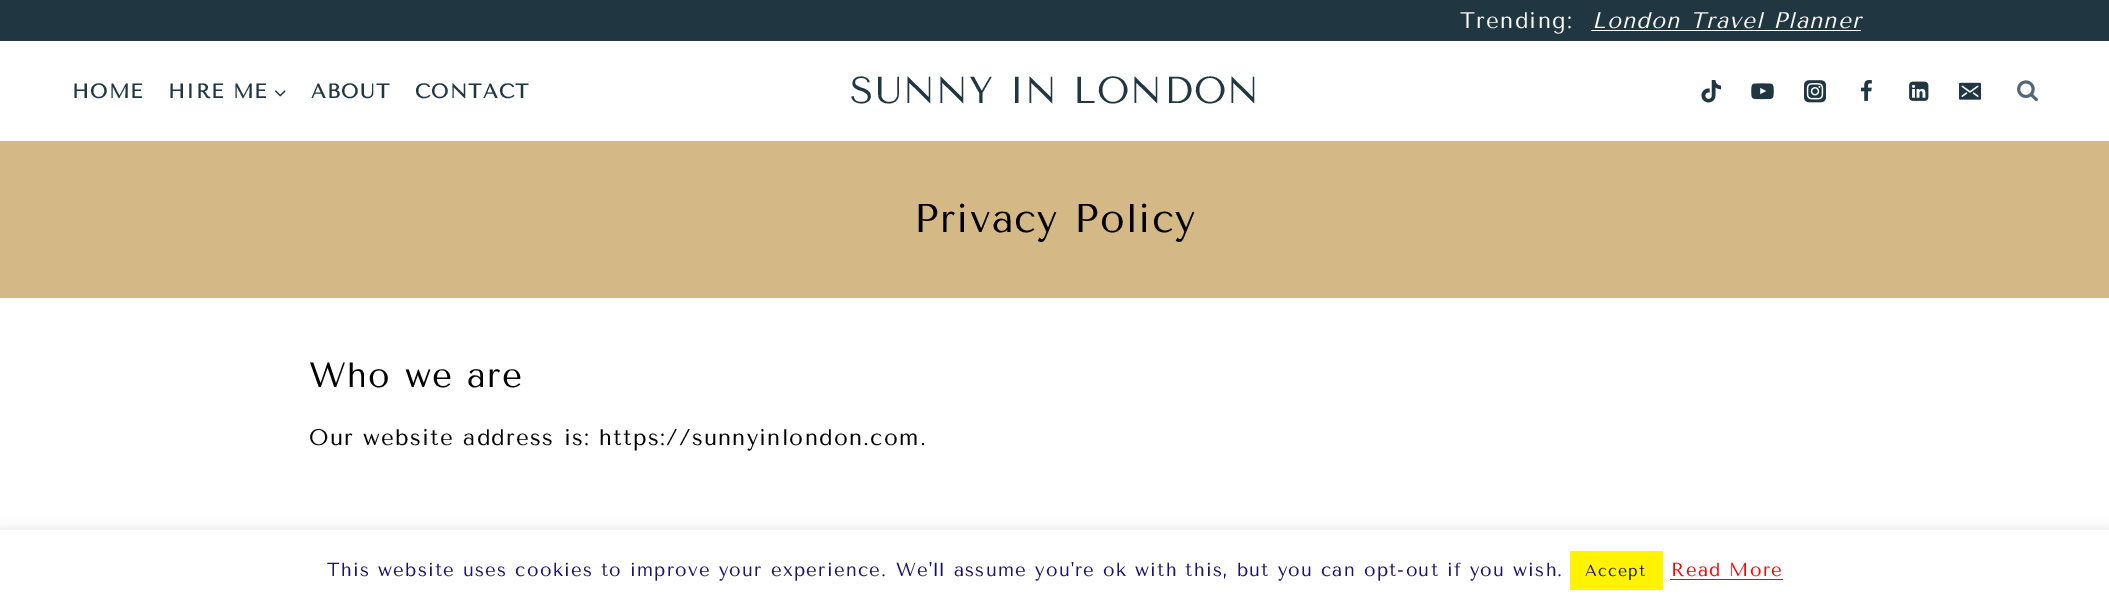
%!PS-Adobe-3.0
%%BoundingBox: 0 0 2109 605
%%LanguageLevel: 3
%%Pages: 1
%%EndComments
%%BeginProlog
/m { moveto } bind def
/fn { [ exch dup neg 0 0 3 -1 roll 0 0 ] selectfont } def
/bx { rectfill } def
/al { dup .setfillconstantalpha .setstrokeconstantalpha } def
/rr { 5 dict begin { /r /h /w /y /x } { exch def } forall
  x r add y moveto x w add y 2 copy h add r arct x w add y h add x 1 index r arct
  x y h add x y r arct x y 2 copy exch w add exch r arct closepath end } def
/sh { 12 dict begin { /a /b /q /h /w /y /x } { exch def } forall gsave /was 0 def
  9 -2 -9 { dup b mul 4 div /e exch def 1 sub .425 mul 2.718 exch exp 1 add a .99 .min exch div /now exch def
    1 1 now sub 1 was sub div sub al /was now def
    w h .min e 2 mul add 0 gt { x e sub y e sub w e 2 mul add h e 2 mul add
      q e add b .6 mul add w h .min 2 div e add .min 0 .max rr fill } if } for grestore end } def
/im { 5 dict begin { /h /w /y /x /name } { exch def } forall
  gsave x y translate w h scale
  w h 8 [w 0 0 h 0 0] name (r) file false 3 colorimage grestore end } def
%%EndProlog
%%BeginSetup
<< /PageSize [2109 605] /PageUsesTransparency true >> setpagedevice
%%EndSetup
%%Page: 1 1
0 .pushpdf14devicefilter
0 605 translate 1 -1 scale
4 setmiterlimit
1 setgray
0 0 2109 605 bx
0.125 0.212 0.255 setrgbcolor
0 0 2109 41 bx
/TenorSans-Regular 22.5 fn
1 setgray
1460 28 m 1.25 0 (Trending:) ashow
/TenorSans-Italic 22.5 fn
1592 28 m 1.25 0 (London Travel Planner) ashow
1591 30 270 1 bx
/TenorSans-Bold 20 fn
0.125 0.212 0.255 setrgbcolor
72 98 m 1.25 0 (HOME) ashow
168 98 m 1.25 0 (HIRE ME) ashow
(image0.raw) 275 90 11 7 im
311 98 m 1.25 0 (ABOUT) ashow
415 98 m 1.25 0 (CONTACT) ashow
/TenorSans-Regular 37.5 fn
850 103 m 1.25 0 (SUNNY IN LONDON) ashow
(image1.raw) 1701 80 21 23 im
(image2.raw) 1751 83 23 17 im
(image3.raw) 1804 80 22 23 im
(image4.raw) 1861 80 11 21 im
(image5.raw) 1909 81 20 20 im
(image6.raw) 1959 82 22 18 im
(image7.raw) 2017 80 21 21 im
0.831 0.722 0.525 setrgbcolor
0 141 2109 157 bx
/TenorSans-Regular 40 fn
0 setgray
914 232 m 1.25 0 (Privacy Policy) ashow
/TenorSans-Regular 35 fn
309 387 m 1.25 0 (Who we are) ashow
/TenorSans-Regular 22.5 fn
309 445 m 1.25 0 (Our website address is: https://sunnyinlondon.com.) ashow
0.675 0.671 0.671 setrgbcolor
0 529 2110 75 0 6 0.3 sh
1 setgray
0 530 2109 75 bx
/TenorSans-Regular 18.75 fn
0.106 0.063 0.424 setrgbcolor
327 576 m 1.25 0 (This website uses cookies to improve your experience. We'll assume you're ok with this, but you can opt-out if you wish.) ashow
1 0.953 0 setrgbcolor
1570 551 93 39 bx
/TenorSans-Regular 16 fn
0.106 0.063 0.424 setrgbcolor
1585 576 m 1.25 0 (Accept) ashow
/TenorSans-Regular 18.75 fn
1 0 0 setrgbcolor
1671 576 m 1.25 0 (Read More) ashow
1670 579 113 1 bx
.poppdf14devicefilter showpage
%%EOF
